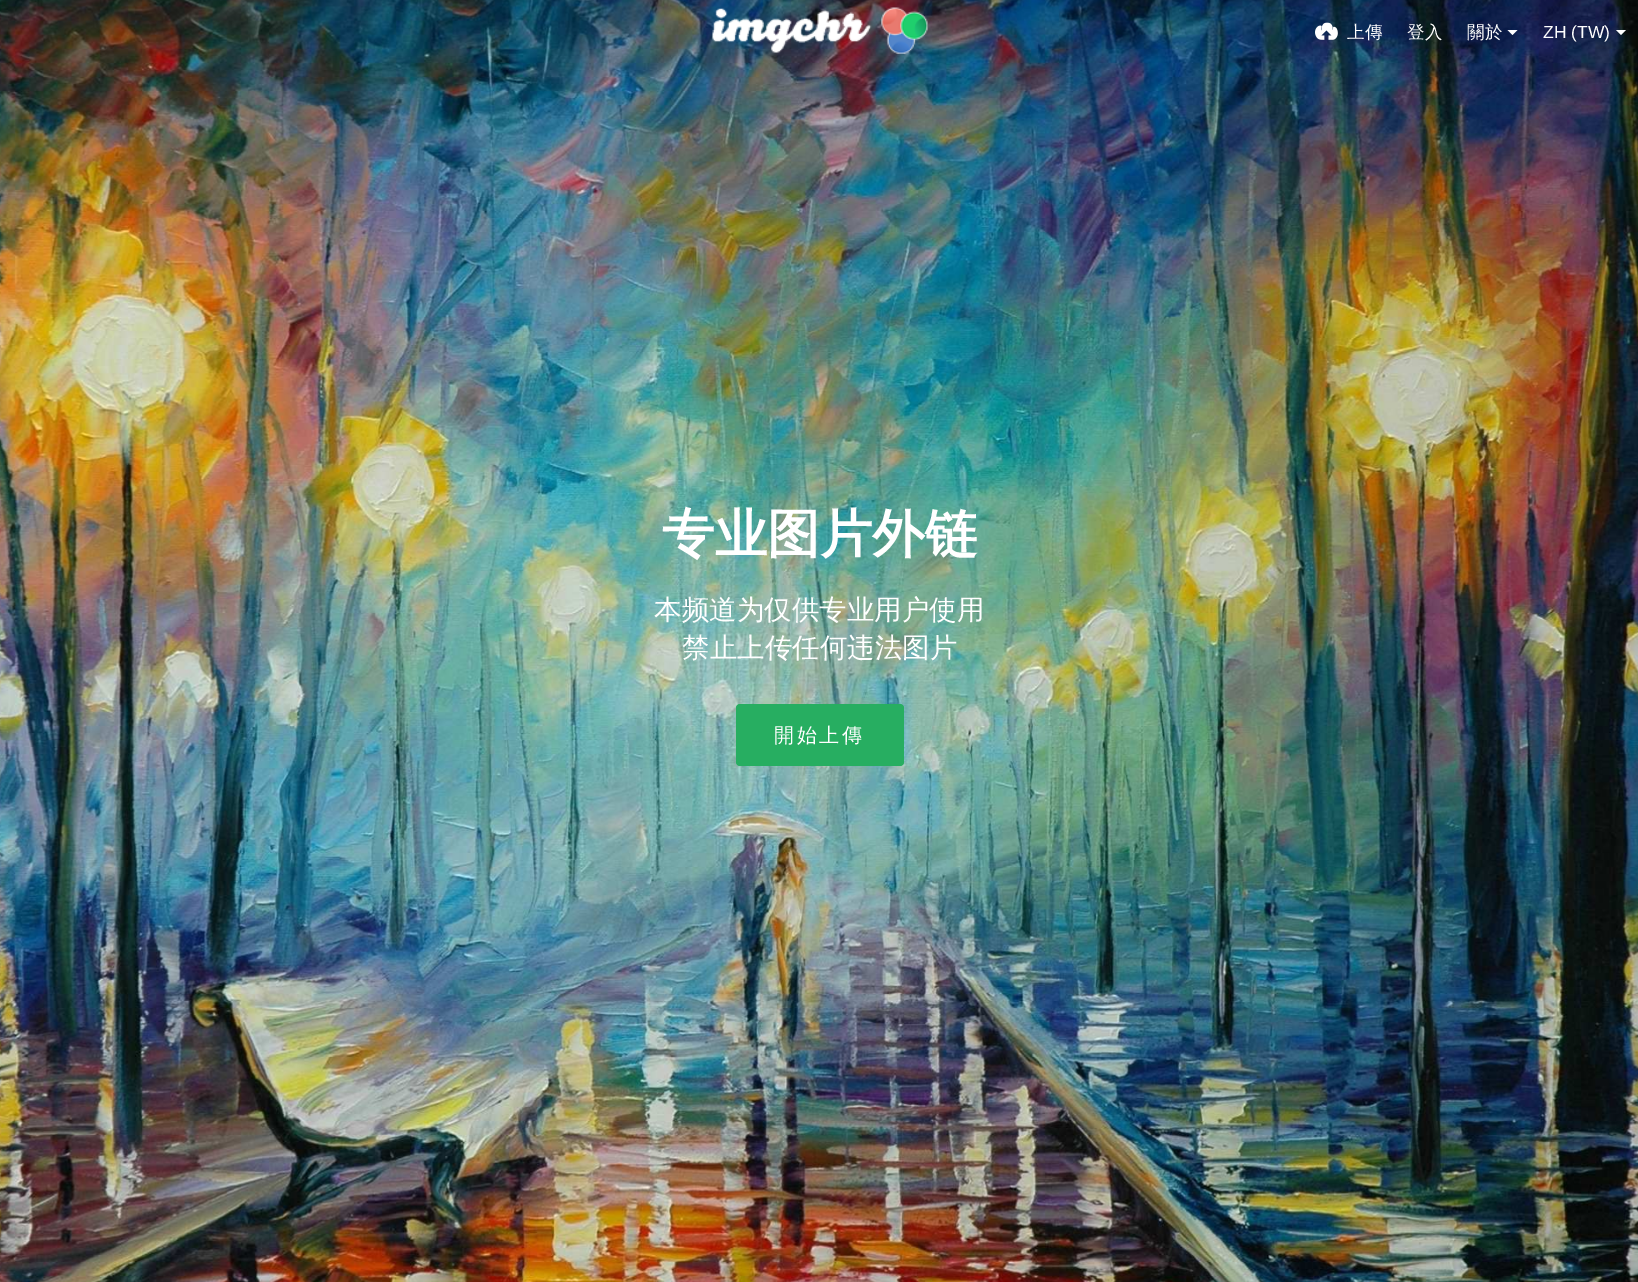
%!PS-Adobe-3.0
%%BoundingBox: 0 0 1638 1282
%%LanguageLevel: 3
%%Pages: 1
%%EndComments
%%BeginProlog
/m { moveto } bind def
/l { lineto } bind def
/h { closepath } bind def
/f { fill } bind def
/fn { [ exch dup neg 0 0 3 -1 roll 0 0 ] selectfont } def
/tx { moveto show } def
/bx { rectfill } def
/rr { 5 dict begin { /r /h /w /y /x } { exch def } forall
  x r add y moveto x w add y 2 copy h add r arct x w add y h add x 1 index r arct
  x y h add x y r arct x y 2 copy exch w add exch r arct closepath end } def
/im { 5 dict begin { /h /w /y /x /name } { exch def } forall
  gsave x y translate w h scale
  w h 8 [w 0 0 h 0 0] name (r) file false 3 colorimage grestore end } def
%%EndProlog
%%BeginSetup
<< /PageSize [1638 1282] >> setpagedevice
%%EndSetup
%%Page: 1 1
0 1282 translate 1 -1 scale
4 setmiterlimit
1 setgray
0 0 1638 1282 bx
(image2.raw) 0 0 1638 1282 im
(image0.raw) 712 7 216 47 im
(image1.raw) 1315 22 23 18 im
/WenQuanYiZenHei-Medium 17.5 fn
(上傳) 1347 38 tx
(登入) 1407 38 tx
(關於) 1467 38 tx
1507.5 30 m 1517.5 30 l 1512.5 35 l h f
/LiberationSans-Regular 17.5 fn
(ZH \(TW\)) 1543 38 tx
1616 30 m 1626 30 l 1621 35 l h f
/WenQuanYiZenHei-Bold 52.5 fn
(专业图片外链) 662 552 tx
/WenQuanYiZenHei-Medium 27.5 fn
(本频道为仅供专业用户使用) 654 619 tx
(禁止上传任何违法图片) 682 657 tx
0.153 0.682 0.38 setrgbcolor
736 704 168 62 4 rr f
/WenQuanYiZenHei-Medium 20 fn
1 setgray
774 742 m 2.5 0 (開始上傳) ashow
showpage
%%EOF
